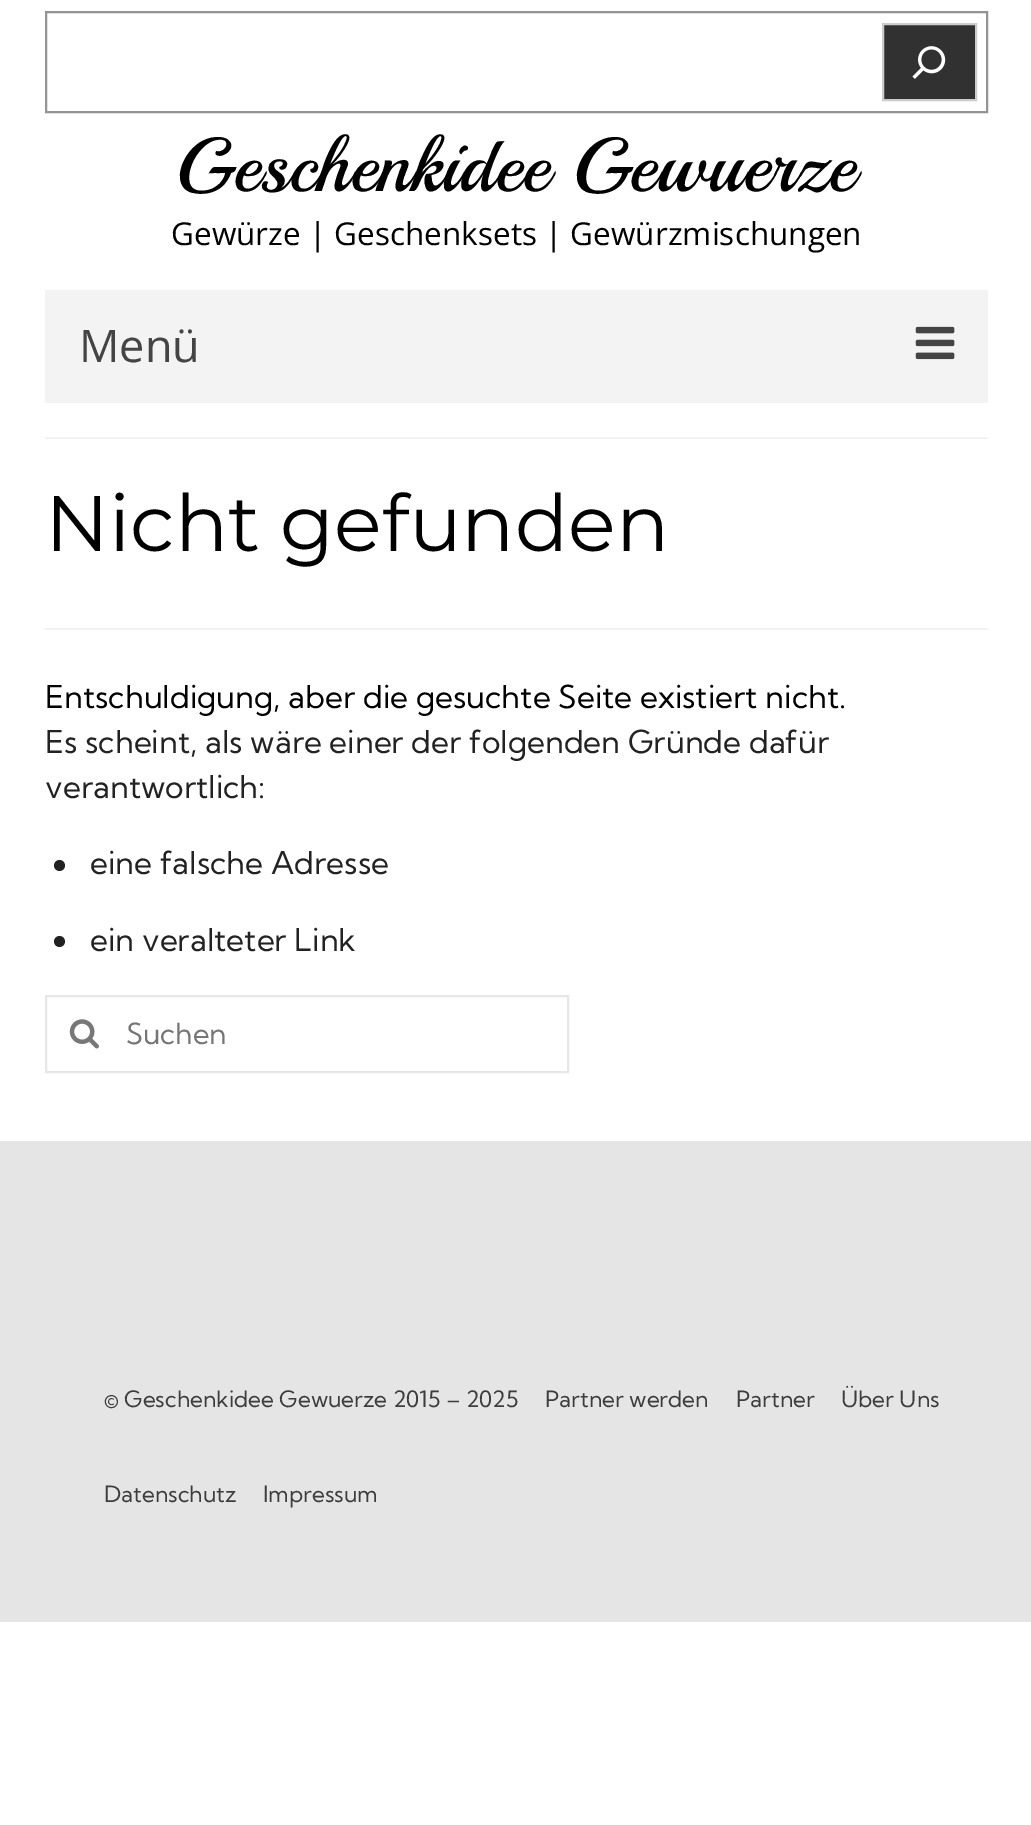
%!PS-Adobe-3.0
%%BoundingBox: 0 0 1031 1825
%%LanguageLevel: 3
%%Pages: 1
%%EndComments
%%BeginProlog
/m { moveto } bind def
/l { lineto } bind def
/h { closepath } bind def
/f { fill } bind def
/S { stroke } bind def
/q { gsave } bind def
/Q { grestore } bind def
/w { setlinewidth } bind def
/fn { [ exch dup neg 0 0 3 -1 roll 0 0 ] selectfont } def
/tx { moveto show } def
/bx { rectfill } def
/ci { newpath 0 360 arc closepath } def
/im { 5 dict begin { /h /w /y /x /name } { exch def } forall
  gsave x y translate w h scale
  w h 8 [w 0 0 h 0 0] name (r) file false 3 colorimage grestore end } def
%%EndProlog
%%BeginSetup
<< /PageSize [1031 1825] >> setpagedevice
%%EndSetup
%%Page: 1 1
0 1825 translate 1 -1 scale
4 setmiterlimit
1 setgray
0 0 1031 1825 bx
0.58 setgray
2 w
46 12 941 100 rectstroke
0.192 setgray
883 24 m 976 24 l 976 100 l 883 100 l h q f Q
0.8 setgray
S
(image0.raw) 912 46 34 33 im
/Playball-Regular 76.5 fn
0 setgray
(Geschenkidee Gewuerze) 176 191 tx
/OpenSans-Regular 31.5 fn
(Gewürze | Geschenksets | Gewürzmischungen) 171 245 tx
0.953 setgray
45 290 943 113 bx
/OpenSans-Regular 45 fn
0.267 setgray
(Menü) 79 362 tx
(image1.raw) 915 326 40 34 im
0.949 setgray
45 437 943 2 bx
45 628 943 2 bx
/Montserrat-Thin 78.75 fn
0 setgray
(Nicht gefunden) 45 551 tx
/KumbhSans-Regular 31.5 fn
(Entschuldigung, aber die gesuchte Seite existiert nicht.) 45 708 tx
0.133 setgray
(Es scheint, als wäre einer der folgenden Gründe dafür) 45 753 tx
(verantwortlich:) 45 798 tx
59.5 865.5 5.5 ci f
(eine falsche Adresse) 90 874 tx
59.5 941.5 5.5 ci f
(ein veralteter Link) 90 951 tx
0.906 setgray
46 996 522 76 rectstroke
(image2.raw) 69 1019 30 30 im
/KumbhSans-Regular 29 fn
0.459 setgray
(Suchen) 126 1044 tx
0.898 setgray
0 1141 1031 481 bx
/KumbhSans-Regular 22.5 fn
0.239 setgray
(© Geschenkidee Gewuerze 2015 – 2025) 104 1407 tx
(Partner werden) 545 1407 tx
(Partner) 736 1407 tx
(Über Uns) 841 1407 tx
(Datenschutz) 104 1502 tx
(Impressum) 263 1502 tx
showpage
%%EOF
